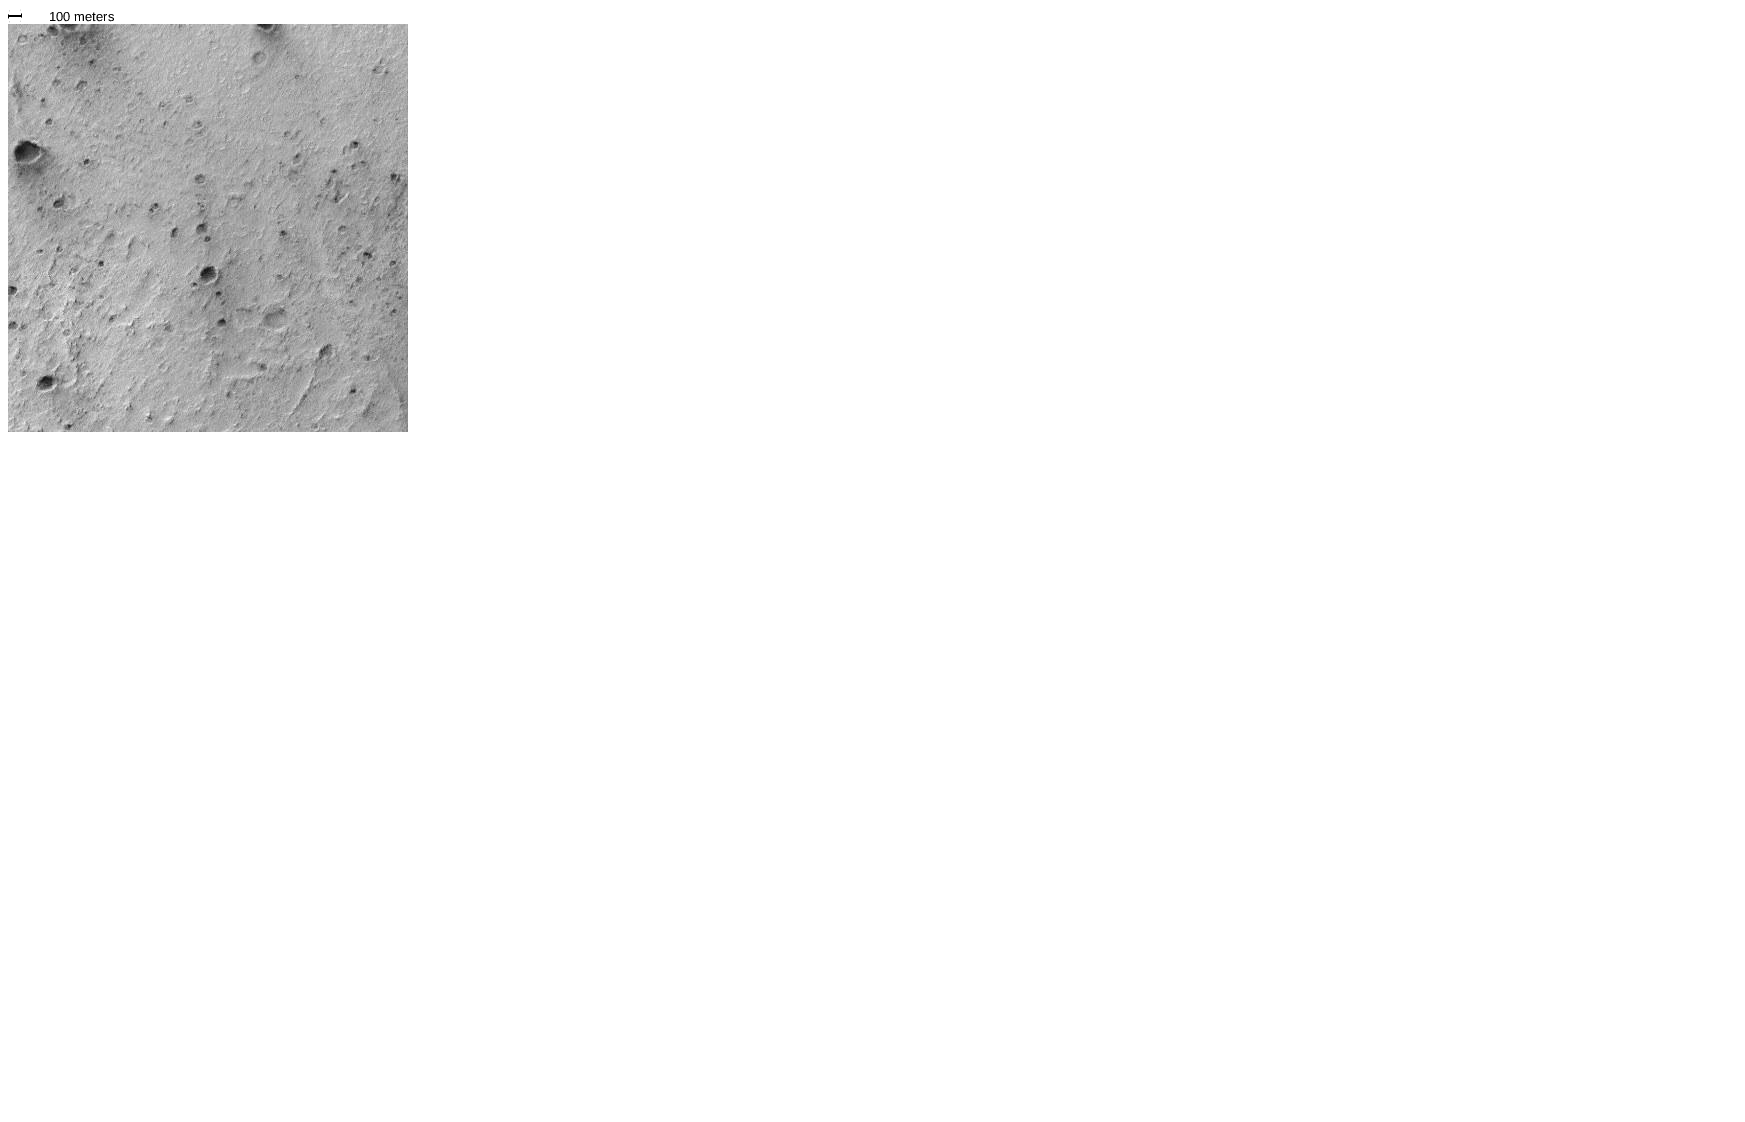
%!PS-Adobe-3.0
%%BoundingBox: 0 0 1745 1122
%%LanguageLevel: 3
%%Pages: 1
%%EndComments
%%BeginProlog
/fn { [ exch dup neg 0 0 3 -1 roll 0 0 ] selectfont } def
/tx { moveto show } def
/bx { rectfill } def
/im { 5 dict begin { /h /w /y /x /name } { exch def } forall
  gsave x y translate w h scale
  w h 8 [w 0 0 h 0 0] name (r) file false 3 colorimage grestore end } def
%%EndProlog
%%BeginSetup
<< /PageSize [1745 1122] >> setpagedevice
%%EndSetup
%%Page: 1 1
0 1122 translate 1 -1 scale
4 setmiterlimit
1 setgray
0 0 1745 1122 bx
(image0.raw) 8 9 14 14 im
/LiberationSans-Regular 13 fn
0 setgray
(100 meters) 49 21 tx
(image1.raw) 8 24 400 408 im
showpage
%%EOF
